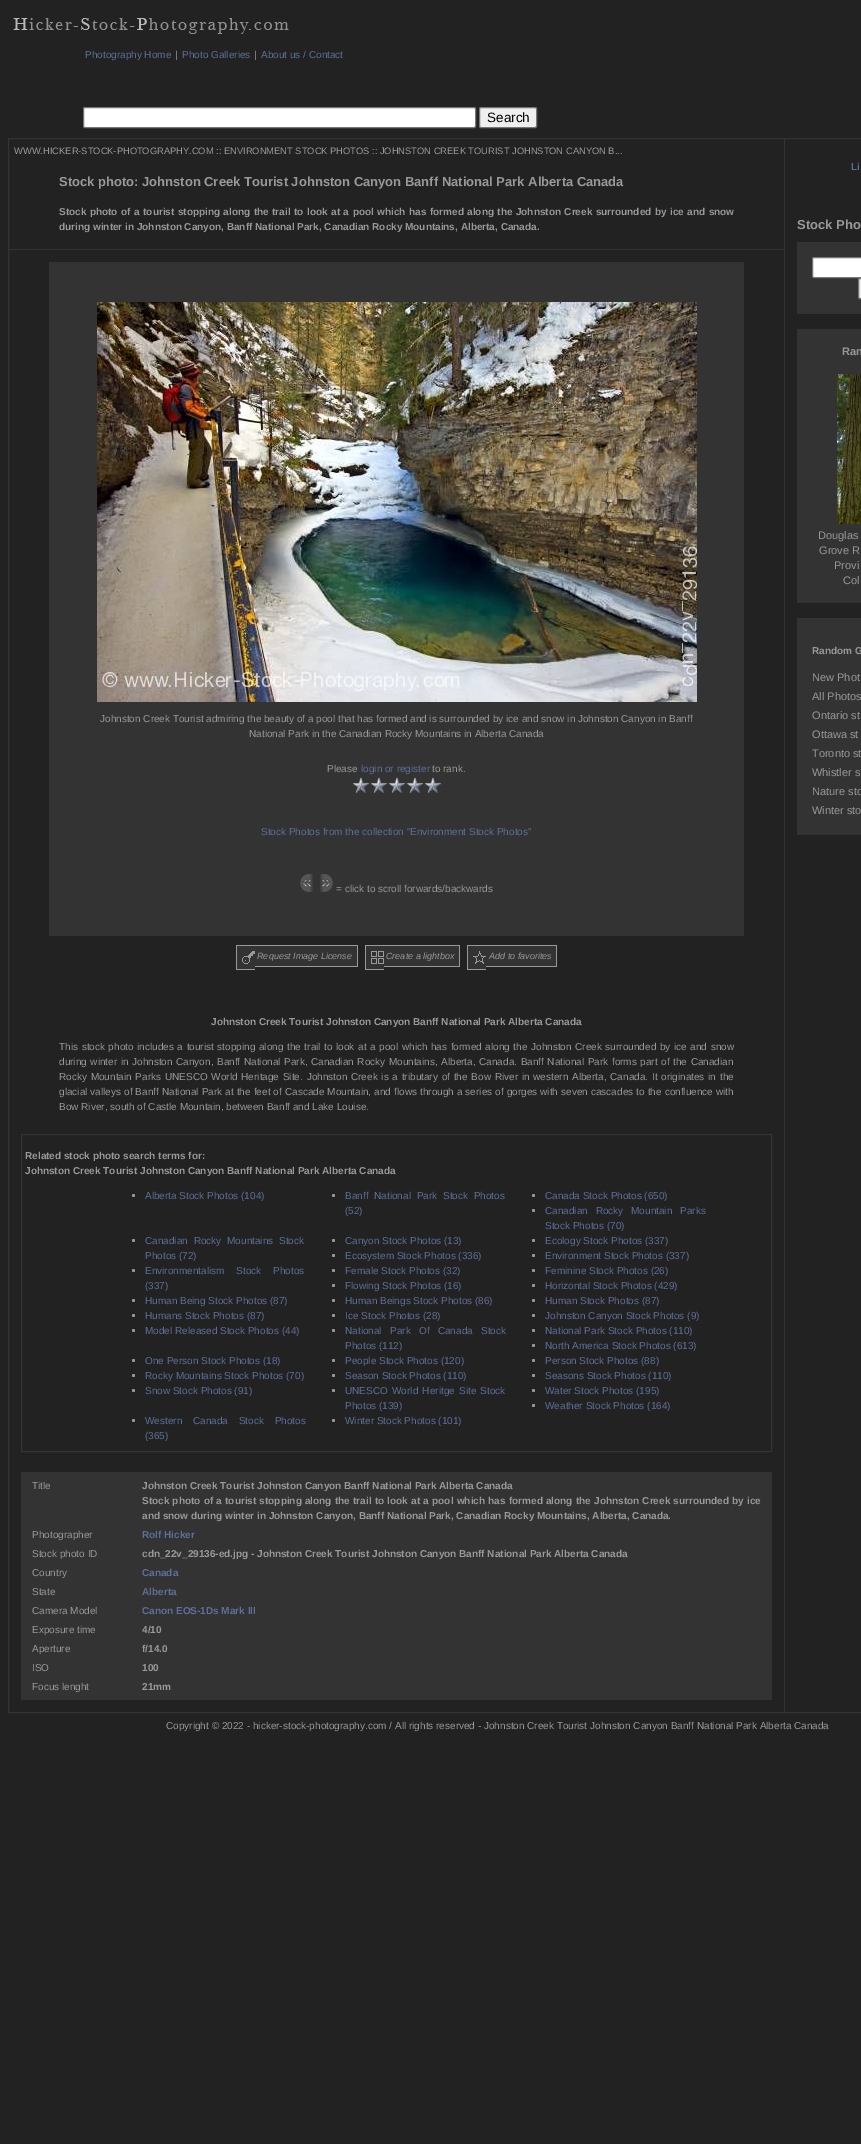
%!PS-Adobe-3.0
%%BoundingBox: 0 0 861 2144
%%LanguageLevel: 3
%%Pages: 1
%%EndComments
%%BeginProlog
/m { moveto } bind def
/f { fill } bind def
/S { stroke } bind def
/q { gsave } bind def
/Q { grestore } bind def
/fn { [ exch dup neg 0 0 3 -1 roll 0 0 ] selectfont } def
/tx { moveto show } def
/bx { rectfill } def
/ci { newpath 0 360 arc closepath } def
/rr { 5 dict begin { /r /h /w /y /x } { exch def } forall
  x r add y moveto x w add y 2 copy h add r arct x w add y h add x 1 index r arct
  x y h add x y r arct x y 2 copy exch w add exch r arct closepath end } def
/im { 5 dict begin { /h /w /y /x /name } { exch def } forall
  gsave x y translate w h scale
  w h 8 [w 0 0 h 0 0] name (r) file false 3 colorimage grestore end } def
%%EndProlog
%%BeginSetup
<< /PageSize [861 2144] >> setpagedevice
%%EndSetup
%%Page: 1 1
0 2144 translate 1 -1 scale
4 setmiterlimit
0.133 setgray
0 0 861 2144 bx
(image0.raw) 13 18 276 16 im
/LiberationSans-Regular 10 fn
0.365 0.439 0.6 setrgbcolor
(Photography Home) 85 58 tx
0.6 setgray
(|) 175 58 tx
0.365 0.439 0.6 setrgbcolor
(Photo Galleries) 182 58 tx
0.6 setgray
(|) 254 58 tx
0.365 0.439 0.6 setrgbcolor
(About us / Contact) 261 58 tx
1 setgray
83.5 107.5 392 20 1.5 rr q f Q
0.463 setgray
S
0.937 setgray
479.5 107.5 57 20 1.5 rr q f Q
0.463 setgray
S
/LiberationSans-Regular 13.5 fn
0 setgray
(Search) 487 122 tx
0.2 setgray
8.5 138.5 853 1574 rectstroke
784 139 1 1573 bx
/LiberationSans-Regular 9.33 fn
0.6 setgray
(WWW.HICKER-STOCK-PHOTOGRAPHY.COM :: ENVIRONMENT STOCK PHOTOS :: JOHNSTON CREEK TOURIST JOHNSTON CANYON B...) 14 154 tx
/LiberationSans-Bold 13 fn
(Stock photo: Johnston Creek Tourist Johnston Canyon Banff National Park Alberta Canada) 59 186 tx
/LiberationSans-Bold 10 fn
59 215 m 0.75 0 32 (Stock photo of a tourist stopping along the trail to look at a pool which has formed along the Johnston Creek surrounded by ice and snow) widthshow
(during winter in Johnston Canyon, Banff National Park, Canadian Rocky Mountains, Alberta, Canada.) 59 230 tx
0.2 setgray
9 249 775 1 bx
49 262 695 674 bx
(image1.raw) 97 302 600 400 im
/LiberationSans-Regular 10 fn
0.6 setgray
(Johnston Creek Tourist admiring the beauty of a pool that has formed and is surrounded by ice and snow in Johnston Canyon in Banff) 100 722 tx
(National Park in the Canadian Rocky Mountains in Alberta Canada) 249 737 tx
(Please) 327 772 tx
0.365 0.439 0.6 setrgbcolor
(login or register) 361 772 tx
0.6 setgray
(to rank.) 432 772 tx
(image2.raw) 353 777 16 16 im
(image2.raw) 371 777 16 16 im
(image2.raw) 389 777 16 16 im
(image2.raw) 407 777 16 16 im
(image2.raw) 425 777 16 16 im
0.365 0.439 0.6 setrgbcolor
(Stock Photos from the collection "Environment Stock Photos") 261 835 tx
(image3.raw) 300 874 13 18 im
(image4.raw) 320 874 13 18 im
0.6 setgray
(= click to scroll forwards/backwards) 336 892 tx
0.2 setgray
237 946 18 23 bx
(image5.raw) 242 951 13 13 im
255 946 102 20 bx
/LiberationSans-Italic 9 fn
0.6 setgray
(Request Image License) 257 959 tx
236 945 122 1 bx
236 969 19 1 bx
236 945 1 25 bx
357 945 1 22 bx
255 966 103 1 bx
0.2 setgray
366 946 18 23 bx
(image6.raw) 371 951 13 13 im
384 946 75 20 bx
0.6 setgray
(Create a lightbox) 386 959 tx
365 945 95 1 bx
365 969 19 1 bx
365 945 1 25 bx
459 945 1 22 bx
384 966 76 1 bx
0.2 setgray
468 946 18 23 bx
(image7.raw) 473 951 13 13 im
486 946 70 20 bx
0.6 setgray
(Add to favorites) 489 959 tx
467 945 90 1 bx
467 969 19 1 bx
467 945 1 25 bx
556 945 1 22 bx
486 966 71 1 bx
/LiberationSans-Bold 10 fn
(Johnston Creek Tourist Johnston Canyon Banff National Park Alberta Canada) 211 1025 tx
/LiberationSans-Regular 10 fn
59 1050 m 0.85 0 32 (This stock photo includes a tourist stopping along the trail to look at a pool which has formed along the Johnston Creek surrounded by ice and snow) widthshow
59 1065 m 0.8 0 32 (during winter in Johnston Canyon, Banff National Park, Canadian Rocky Mountains, Alberta, Canada. Banff National Park forms part of the Canadian) widthshow
59 1080 m 1 0 32 (Rocky Mountain Parks UNESCO World Heritage Site. Johnston Creek is a tributary of the Bow River in western Alberta, Canada. It originates in the) widthshow
59 1095 m 0.3 0 32 (glacial valleys of Banff National Park at the feet of Cascade Mountain, and flows through a series of gorges with seven cascades to the confluence with) widthshow
(Bow River, south of Castle Mountain, between Banff and Lake Louise.) 59 1110 tx
0.2 setgray
21.5 1134.5 750 317 rectstroke
/LiberationSans-Bold 10 fn
0.6 setgray
(Related stock photo search terms for:) 25 1159 tx
(Johnston Creek Tourist Johnston Canyon Banff National Park Alberta Canada) 25 1174 tx
133.5 1195.5 1.5 ci f
/LiberationSans-Regular 10 fn
0.365 0.439 0.6 setrgbcolor
(Alberta Stock Photos \(104\)) 145 1199 tx
0.6 setgray
333.5 1195.5 1.5 ci f
0.365 0.439 0.6 setrgbcolor
345 1199 m 3 0 32 (Banff National Park Stock Photos) widthshow
(\(52\)) 345 1214 tx
0.6 setgray
533.5 1195.5 1.5 ci f
0.365 0.439 0.6 setrgbcolor
(Canada Stock Photos \(650\)) 545 1199 tx
0.6 setgray
533.5 1210.5 1.5 ci f
0.365 0.439 0.6 setrgbcolor
545 1214 m 5 0 32 (Canadian Rocky Mountain Parks) widthshow
(Stock Photos \(70\)) 545 1229 tx
0.6 setgray
133.5 1240.5 1.5 ci f
0.365 0.439 0.6 setrgbcolor
145 1244 m 3 0 32 (Canadian Rocky Mountains Stock) widthshow
(Photos \(72\)) 145 1259 tx
0.6 setgray
333.5 1240.5 1.5 ci f
0.365 0.439 0.6 setrgbcolor
(Canyon Stock Photos \(13\)) 345 1244 tx
0.6 setgray
533.5 1240.5 1.5 ci f
0.365 0.439 0.6 setrgbcolor
(Ecology Stock Photos \(337\)) 545 1244 tx
0.6 setgray
333.5 1255.5 1.5 ci f
0.365 0.439 0.6 setrgbcolor
(Ecosystem Stock Photos \(336\)) 345 1259 tx
0.6 setgray
533.5 1255.5 1.5 ci f
0.365 0.439 0.6 setrgbcolor
(Environment Stock Photos \(337\)) 545 1259 tx
0.6 setgray
133.5 1270.5 1.5 ci f
0.365 0.439 0.6 setrgbcolor
145 1274 m 9 0 32 (Environmentalism Stock Photos) widthshow
(\(337\)) 145 1289 tx
0.6 setgray
333.5 1270.5 1.5 ci f
0.365 0.439 0.6 setrgbcolor
(Female Stock Photos \(32\)) 345 1274 tx
0.6 setgray
533.5 1270.5 1.5 ci f
0.365 0.439 0.6 setrgbcolor
(Feminine Stock Photos \(26\)) 545 1274 tx
0.6 setgray
333.5 1285.5 1.5 ci f
0.365 0.439 0.6 setrgbcolor
(Flowing Stock Photos \(16\)) 345 1289 tx
0.6 setgray
533.5 1285.5 1.5 ci f
0.365 0.439 0.6 setrgbcolor
(Horizontal Stock Photos \(429\)) 545 1289 tx
0.6 setgray
133.5 1300.5 1.5 ci f
0.365 0.439 0.6 setrgbcolor
(Human Being Stock Photos \(87\)) 145 1304 tx
0.6 setgray
333.5 1300.5 1.5 ci f
0.365 0.439 0.6 setrgbcolor
(Human Beings Stock Photos \(86\)) 345 1304 tx
0.6 setgray
533.5 1300.5 1.5 ci f
0.365 0.439 0.6 setrgbcolor
(Human Stock Photos \(87\)) 545 1304 tx
0.6 setgray
133.5 1315.5 1.5 ci f
0.365 0.439 0.6 setrgbcolor
(Humans Stock Photos \(87\)) 145 1319 tx
0.6 setgray
333.5 1315.5 1.5 ci f
0.365 0.439 0.6 setrgbcolor
(Ice Stock Photos \(28\)) 345 1319 tx
0.6 setgray
533.5 1315.5 1.5 ci f
0.365 0.439 0.6 setrgbcolor
(Johnston Canyon Stock Photos \(9\)) 545 1319 tx
0.6 setgray
133.5 1330.5 1.5 ci f
0.365 0.439 0.6 setrgbcolor
(Model Released Stock Photos \(44\)) 145 1334 tx
0.6 setgray
333.5 1330.5 1.5 ci f
0.365 0.439 0.6 setrgbcolor
345 1334 m 5.5 0 32 (National Park Of Canada Stock) widthshow
(Photos \(112\)) 345 1349 tx
0.6 setgray
533.5 1330.5 1.5 ci f
0.365 0.439 0.6 setrgbcolor
(National Park Stock Photos \(110\)) 545 1334 tx
0.6 setgray
533.5 1345.5 1.5 ci f
0.365 0.439 0.6 setrgbcolor
(North America Stock Photos \(613\)) 545 1349 tx
0.6 setgray
133.5 1360.5 1.5 ci f
0.365 0.439 0.6 setrgbcolor
(One Person Stock Photos \(18\)) 145 1364 tx
0.6 setgray
333.5 1360.5 1.5 ci f
0.365 0.439 0.6 setrgbcolor
(People Stock Photos \(120\)) 345 1364 tx
0.6 setgray
533.5 1360.5 1.5 ci f
0.365 0.439 0.6 setrgbcolor
(Person Stock Photos \(88\)) 545 1364 tx
0.6 setgray
133.5 1375.5 1.5 ci f
0.365 0.439 0.6 setrgbcolor
(Rocky Mountains Stock Photos \(70\)) 145 1379 tx
0.6 setgray
333.5 1375.5 1.5 ci f
0.365 0.439 0.6 setrgbcolor
(Season Stock Photos \(110\)) 345 1379 tx
0.6 setgray
533.5 1375.5 1.5 ci f
0.365 0.439 0.6 setrgbcolor
(Seasons Stock Photos \(110\)) 545 1379 tx
0.6 setgray
133.5 1390.5 1.5 ci f
0.365 0.439 0.6 setrgbcolor
(Snow Stock Photos \(91\)) 145 1394 tx
0.6 setgray
333.5 1390.5 1.5 ci f
0.365 0.439 0.6 setrgbcolor
345 1394 m 1.5 0 32 (UNESCO World Heritge Site Stock) widthshow
(Photos \(139\)) 345 1409 tx
0.6 setgray
533.5 1390.5 1.5 ci f
0.365 0.439 0.6 setrgbcolor
(Water Stock Photos \(195\)) 545 1394 tx
0.6 setgray
533.5 1405.5 1.5 ci f
0.365 0.439 0.6 setrgbcolor
(Weather Stock Photos \(164\)) 545 1409 tx
0.6 setgray
133.5 1420.5 1.5 ci f
0.365 0.439 0.6 setrgbcolor
145 1424 m 8 0 32 (Western Canada Stock Photos) widthshow
(\(365\)) 145 1439 tx
0.6 setgray
333.5 1420.5 1.5 ci f
0.365 0.439 0.6 setrgbcolor
(Winter Stock Photos \(101\)) 345 1424 tx
0.2 setgray
21 1472 751 228 bx
0.6 setgray
(Title) 32 1489 tx
/LiberationSans-Bold 10 fn
(Johnston Creek Tourist Johnston Canyon Banff National Park Alberta Canada) 142 1489 tx
142 1504 m 0.5 0 32 (Stock photo of a tourist stopping along the trail to look at a pool which has formed along the Johnston Creek surrounded by ice) widthshow
(and snow during winter in Johnston Canyon, Banff National Park, Canadian Rocky Mountains, Alberta, Canada.) 142 1519 tx
/LiberationSans-Regular 10 fn
(Photographer) 32 1538 tx
/LiberationSans-Bold 10 fn
0.365 0.439 0.6 setrgbcolor
(Rolf Hicker) 142 1538 tx
/LiberationSans-Regular 10 fn
0.6 setgray
(Stock photo ID) 32 1557 tx
/LiberationSans-Bold 10 fn
(cdn_22v_29136-ed.jpg - Johnston Creek Tourist Johnston Canyon Banff National Park Alberta Canada) 142 1557 tx
/LiberationSans-Regular 10 fn
(Country) 32 1576 tx
/LiberationSans-Bold 10 fn
0.365 0.439 0.6 setrgbcolor
(Canada) 142 1576 tx
/LiberationSans-Regular 10 fn
0.6 setgray
(State) 32 1595 tx
/LiberationSans-Bold 10 fn
0.365 0.439 0.6 setrgbcolor
(Alberta) 142 1595 tx
/LiberationSans-Regular 10 fn
0.6 setgray
(Camera Model) 32 1614 tx
/LiberationSans-Bold 10 fn
0.365 0.439 0.6 setrgbcolor
(Canon EOS-1Ds Mark III) 142 1614 tx
/LiberationSans-Regular 10 fn
0.6 setgray
(Exposure time) 32 1633 tx
/LiberationSans-Bold 10 fn
(4/10) 142 1633 tx
/LiberationSans-Regular 10 fn
(Aperture) 32 1652 tx
/LiberationSans-Bold 10 fn
(f/14.0) 142 1652 tx
/LiberationSans-Regular 10 fn
(ISO) 32 1671 tx
/LiberationSans-Bold 10 fn
(100) 142 1671 tx
/LiberationSans-Regular 10 fn
(Focus lenght) 32 1690 tx
/LiberationSans-Bold 10 fn
(21mm) 142 1690 tx
0.365 0.439 0.6 setrgbcolor
(Li) 851 170 tx
/LiberationSans-Bold 13 fn
0.6 setgray
(Stock Pho) 797 229 tx
0.2 setgray
797 242 64 72 bx
1 setgray
812.5 257.5 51 20 1.5 rr q f Q
0.463 setgray
S
0.937 setgray
858.5 278.5 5 20 1.5 rr q f Q
0.463 setgray
S
0.2 setgray
797 329 64 274 bx
/LiberationSans-Bold 11 fn
0.6 setgray
(Ran) 842 355 tx
(image8.raw) 837 374 24 150 im
/LiberationSans-Regular 11 fn
(Douglas) 818 539 tx
(Grove R) 819 554 tx
(Provi) 834 569 tx
(Col) 843 584 tx
0.2 setgray
797 618 64 217 bx
/LiberationSans-Bold 10 fn
0.6 setgray
(Random G) 812 654 tx
/LiberationSans-Regular 11 fn
(New Phot) 812 681 tx
(All Photos) 812 700 tx
(Ontario st) 812 719 tx
(Ottawa st) 812 738 tx
(Toronto st) 812 757 tx
(Whistler s) 812 776 tx
(Nature sto) 812 795 tx
(Winter sto) 812 814 tx
/LiberationSans-Regular 10 fn
(Copyright © 2022 - hicker-stock-photography.com / All rights reserved - Johnston Creek Tourist Johnston Canyon Banff National Park Alberta Canada) 166 1729 tx
showpage
%%EOF
